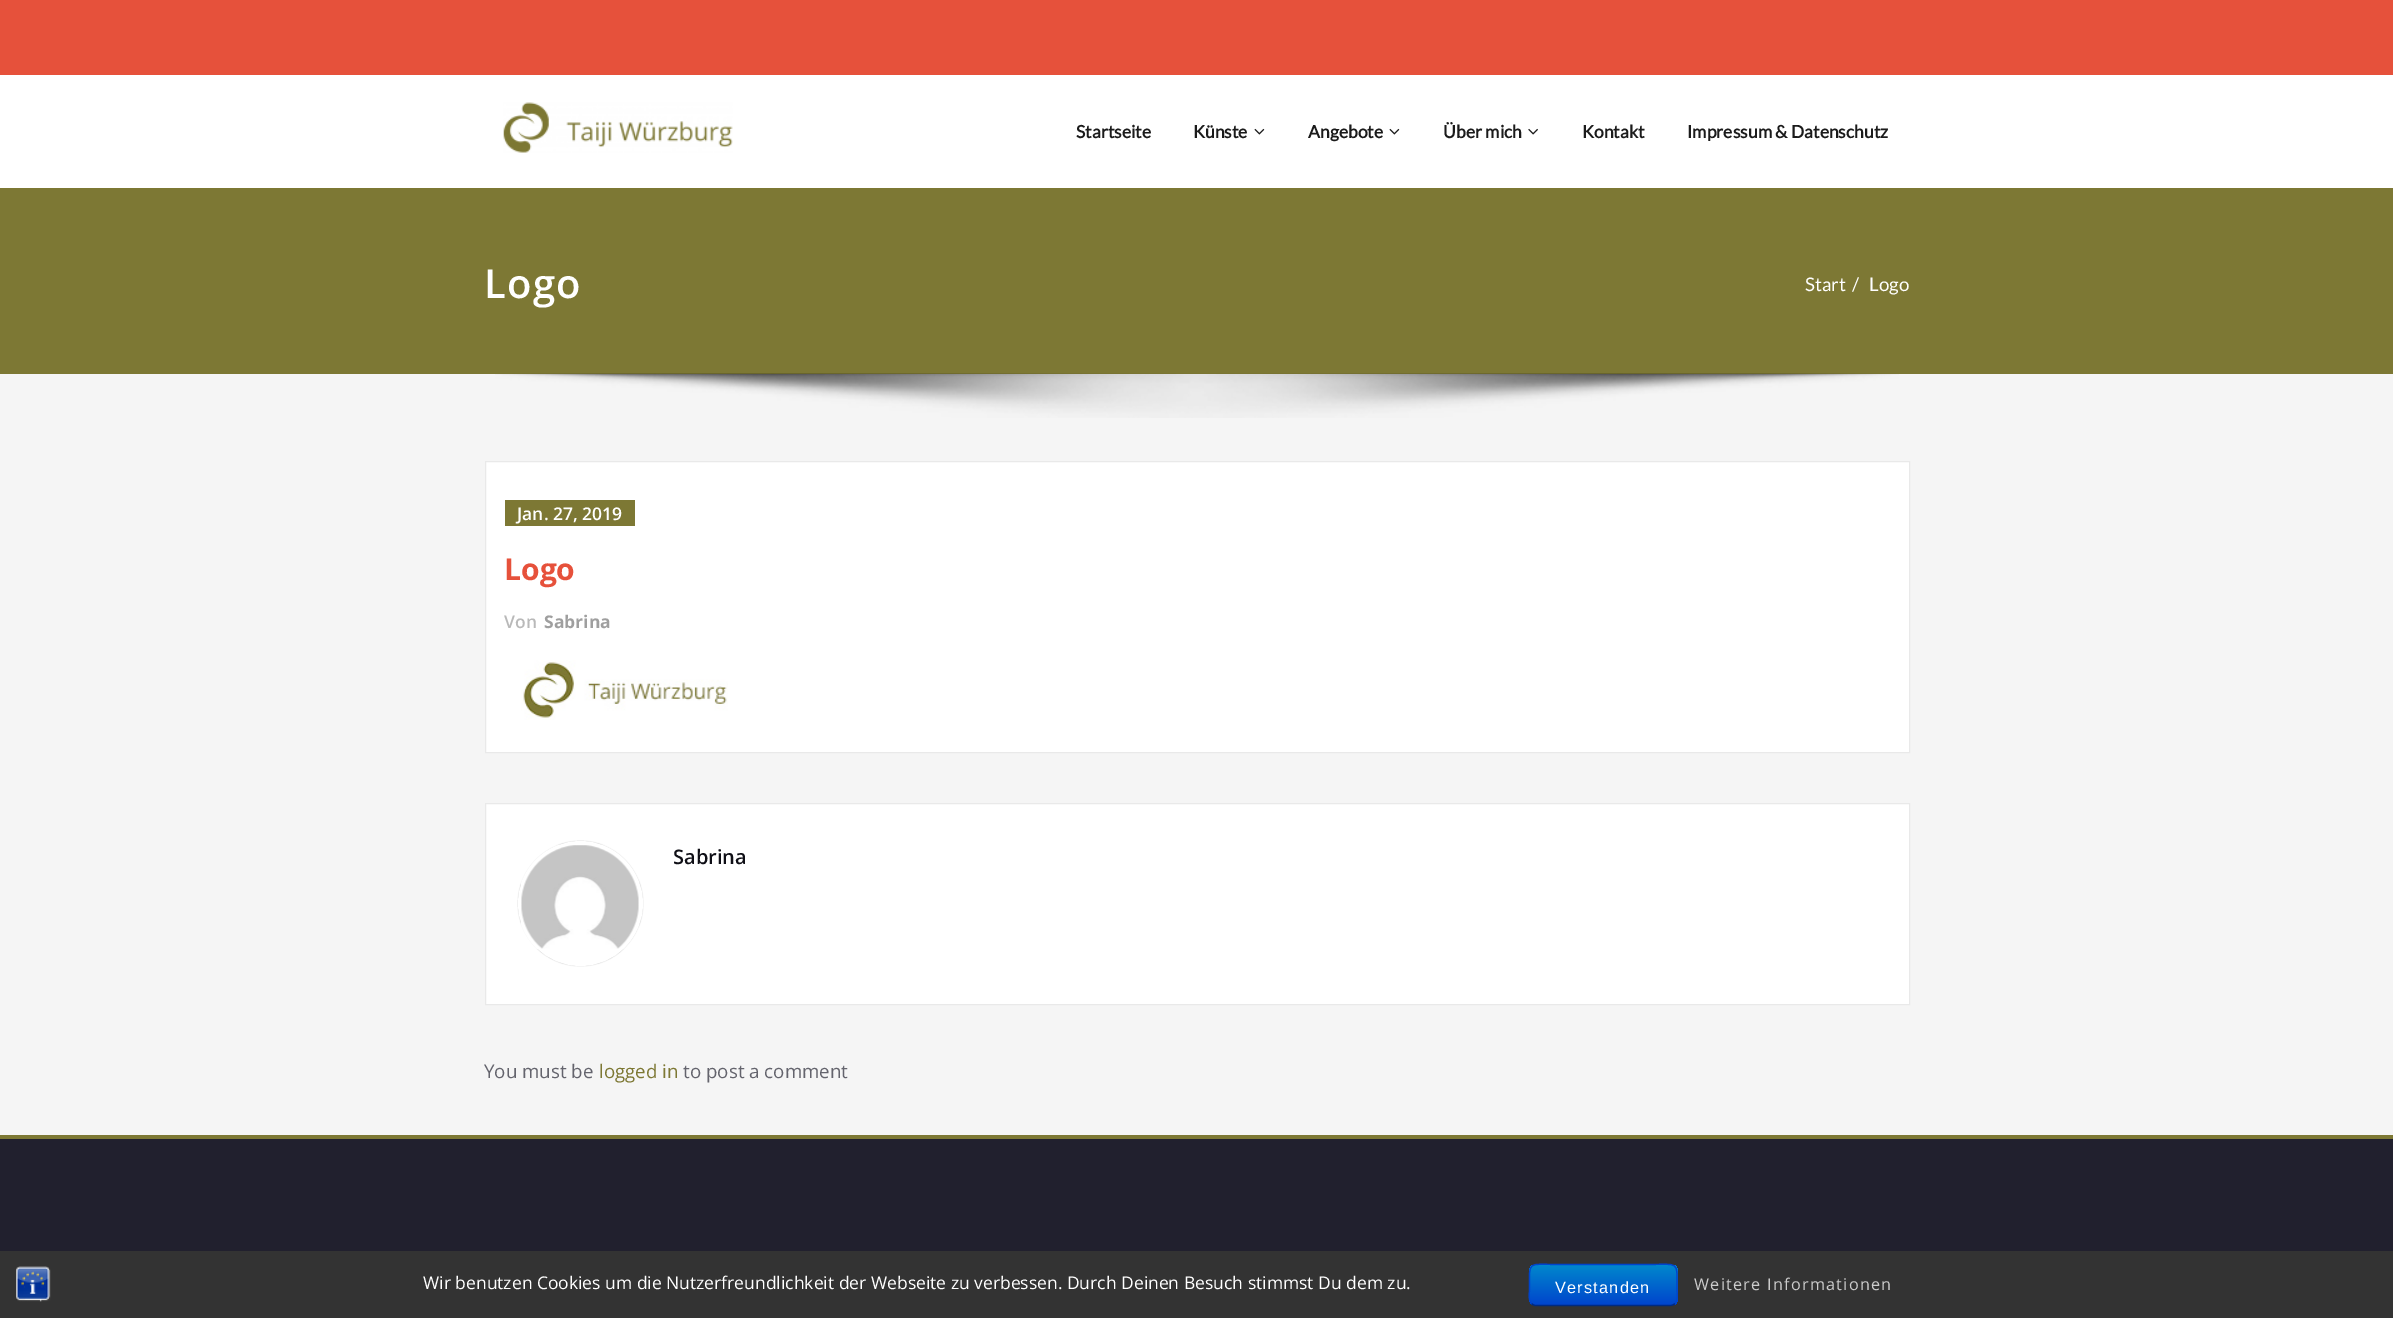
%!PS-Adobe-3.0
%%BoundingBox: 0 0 2393 1318
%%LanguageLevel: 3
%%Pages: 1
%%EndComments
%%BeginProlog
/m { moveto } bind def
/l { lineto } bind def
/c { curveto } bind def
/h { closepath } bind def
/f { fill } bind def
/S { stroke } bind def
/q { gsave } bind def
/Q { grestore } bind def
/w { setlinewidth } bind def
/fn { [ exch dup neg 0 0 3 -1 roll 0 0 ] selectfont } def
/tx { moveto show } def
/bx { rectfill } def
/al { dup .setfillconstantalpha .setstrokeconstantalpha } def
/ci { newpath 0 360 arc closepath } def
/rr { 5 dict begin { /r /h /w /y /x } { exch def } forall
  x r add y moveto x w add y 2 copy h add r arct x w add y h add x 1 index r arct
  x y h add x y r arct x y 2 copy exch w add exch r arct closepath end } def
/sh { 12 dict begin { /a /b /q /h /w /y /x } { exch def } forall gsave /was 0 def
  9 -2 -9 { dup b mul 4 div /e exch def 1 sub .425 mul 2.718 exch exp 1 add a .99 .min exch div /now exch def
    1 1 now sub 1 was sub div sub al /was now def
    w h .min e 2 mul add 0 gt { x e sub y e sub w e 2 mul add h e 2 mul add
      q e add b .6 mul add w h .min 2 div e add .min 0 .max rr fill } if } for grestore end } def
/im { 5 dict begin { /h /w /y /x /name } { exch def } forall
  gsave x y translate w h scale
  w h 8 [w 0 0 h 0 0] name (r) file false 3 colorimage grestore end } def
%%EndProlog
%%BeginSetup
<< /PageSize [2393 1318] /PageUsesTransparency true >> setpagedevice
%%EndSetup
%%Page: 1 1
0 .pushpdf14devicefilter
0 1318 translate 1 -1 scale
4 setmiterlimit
0.961 setgray
0 0 2393 1318 bx
0.902 0.318 0.231 setrgbcolor
0 0 2393 75 bx
1 setgray
0 75 2393 113 bx
(image0.raw) 503 102 230 51 im
/Lato-Bold 17.5 fn
0.106 setgray
(Startseite) 1076 138 tx
(Künste) 1193 138 tx
(image1.raw) 1254 128 11 7 im
(Angebote) 1308 138 tx
(image1.raw) 1389 128 11 7 im
(Über mich) 1443 138 tx
(image2.raw) 1528 128 10 7 im
(Kontakt) 1582 138 tx
(Impressum & Datenschutz) 1687 138 tx
0.49 0.471 0.204 setrgbcolor
0 188 2393 186 bx
/OpenSans-SemiBold 40 fn
1 setgray
484 298 m 1.25 0 (Logo) ashow
/Lato-Regular 18.75 fn
(Start) 1805 291 tx
(/) 1852 291 tx
(Logo) 1869 291 tx
(image3.raw) 495 373 1404 45 im
485.5 461.5 m 1909.5 461.5 l 1909.5 752.5 l 485.5 752.5 l h q f Q
0.914 setgray
S
0.49 0.471 0.204 setrgbcolor
505 500 130 26 bx
/OpenSans-SemiBold 17.5 fn
1 setgray
(Jan. 27, 2019) 517 520 tx
/OpenSans-Bold 30 fn
0.902 0.318 0.231 setrgbcolor
(Logo) 504 580 tx
/OpenSans-SemiBold 17.5 fn
0.725 setgray
(Von) 504 628 tx
/OpenSans-Bold 17.5 fn
0.624 setgray
(Sabrina) 544 628 tx
(image4.raw) 521 660 207 60 im
1 setgray
485.5 803.5 m 1909.5 803.5 l 1909.5 1004.5 l 485.5 1004.5 l h q f Q
0.914 setgray
S
q
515 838 m 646 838 l 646 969 l 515 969 l h 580.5 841 m 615 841 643 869 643 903.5 c 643 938 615 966 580.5 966 c 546 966 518 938 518 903.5 c 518 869 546 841 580.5 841 c h eoclip newpath
0.8 setgray
518 841 125 125 62.5 0.5 1 sh
Q
1 setgray
4 w
580.5 903.5 60.5 ci S
(image5.raw) 521 845 118 104 im
/OpenSans-SemiBold 20 fn
0.059 0.059 0.086 setrgbcolor
(Sabrina) 673 864 tx
/OpenSans-Regular 18.75 fn
0.392 0.392 0.427 setrgbcolor
(You must be) 484 1078 tx
0.49 0.471 0.204 setrgbcolor
(logged in) 599 1078 tx
0.392 0.392 0.427 setrgbcolor
(to post a comment) 683 1078 tx
0.129 0.125 0.18 setrgbcolor
0 1139 2393 112 bx
0.49 0.471 0.204 setrgbcolor
0 1135 2393 4 bx
0.2 setgray
0 1251 2393 67 bx
(image6.raw) 16 1266 35 36 im
/OpenSans-Regular 17.5 fn
1 setgray
(Wir benutzen Cookies um die Nutzerfreundlichkeit der Webseite zu verbessen. Durch Deinen Besuch stimmst Du dem zu.) 423 1289 tx
q
1529 1264 149 42 8 rr clip newpath
q 1529 1265 m 1678 1265 l 1678 1305 l 1529 1305 l h clip newpath
<< /ShadingType 2 /ColorSpace /DeviceRGB /Coords [1603 1265 1603 1305] /Extend [true true] /Function << /FunctionType 2 /Domain [0 1] /C0 [0 0.533 0.8] /C1 [0 0.267 0.8] /N 1 >> >> shfill Q
Q
0 0.165 0.502 setrgbcolor
1.2 w
1675 1303.5 m 1673.5 1305 1672 1305.5 1670 1305.5 c 1536 1305.5 l 1534.5 1305.5 1532.5 1305 1531.5 1303.5 c S
0 0.267 0.8 setrgbcolor
1531.5 1303.5 m 1528 1300 1529.5 1294 1529.5 1289.5 c 1529.5 1260 1526.5 1264.5 1558.5 1264.5 c 1647.5 1264.5 l 1680 1264.5 1677 1260 1677 1289.5 c 1677 1294 1678.5 1300 1675 1303.5 c S
/LiberationSans-Regular 16.25 fn
1 setgray
1555 1293 m 1.25 0 (Verstanden) ashow
/OpenSans-Regular 16.25 fn
0.8 setgray
1694 1290 m 1.25 0 (Weitere Informationen) ashow
.poppdf14devicefilter showpage
%%EOF
